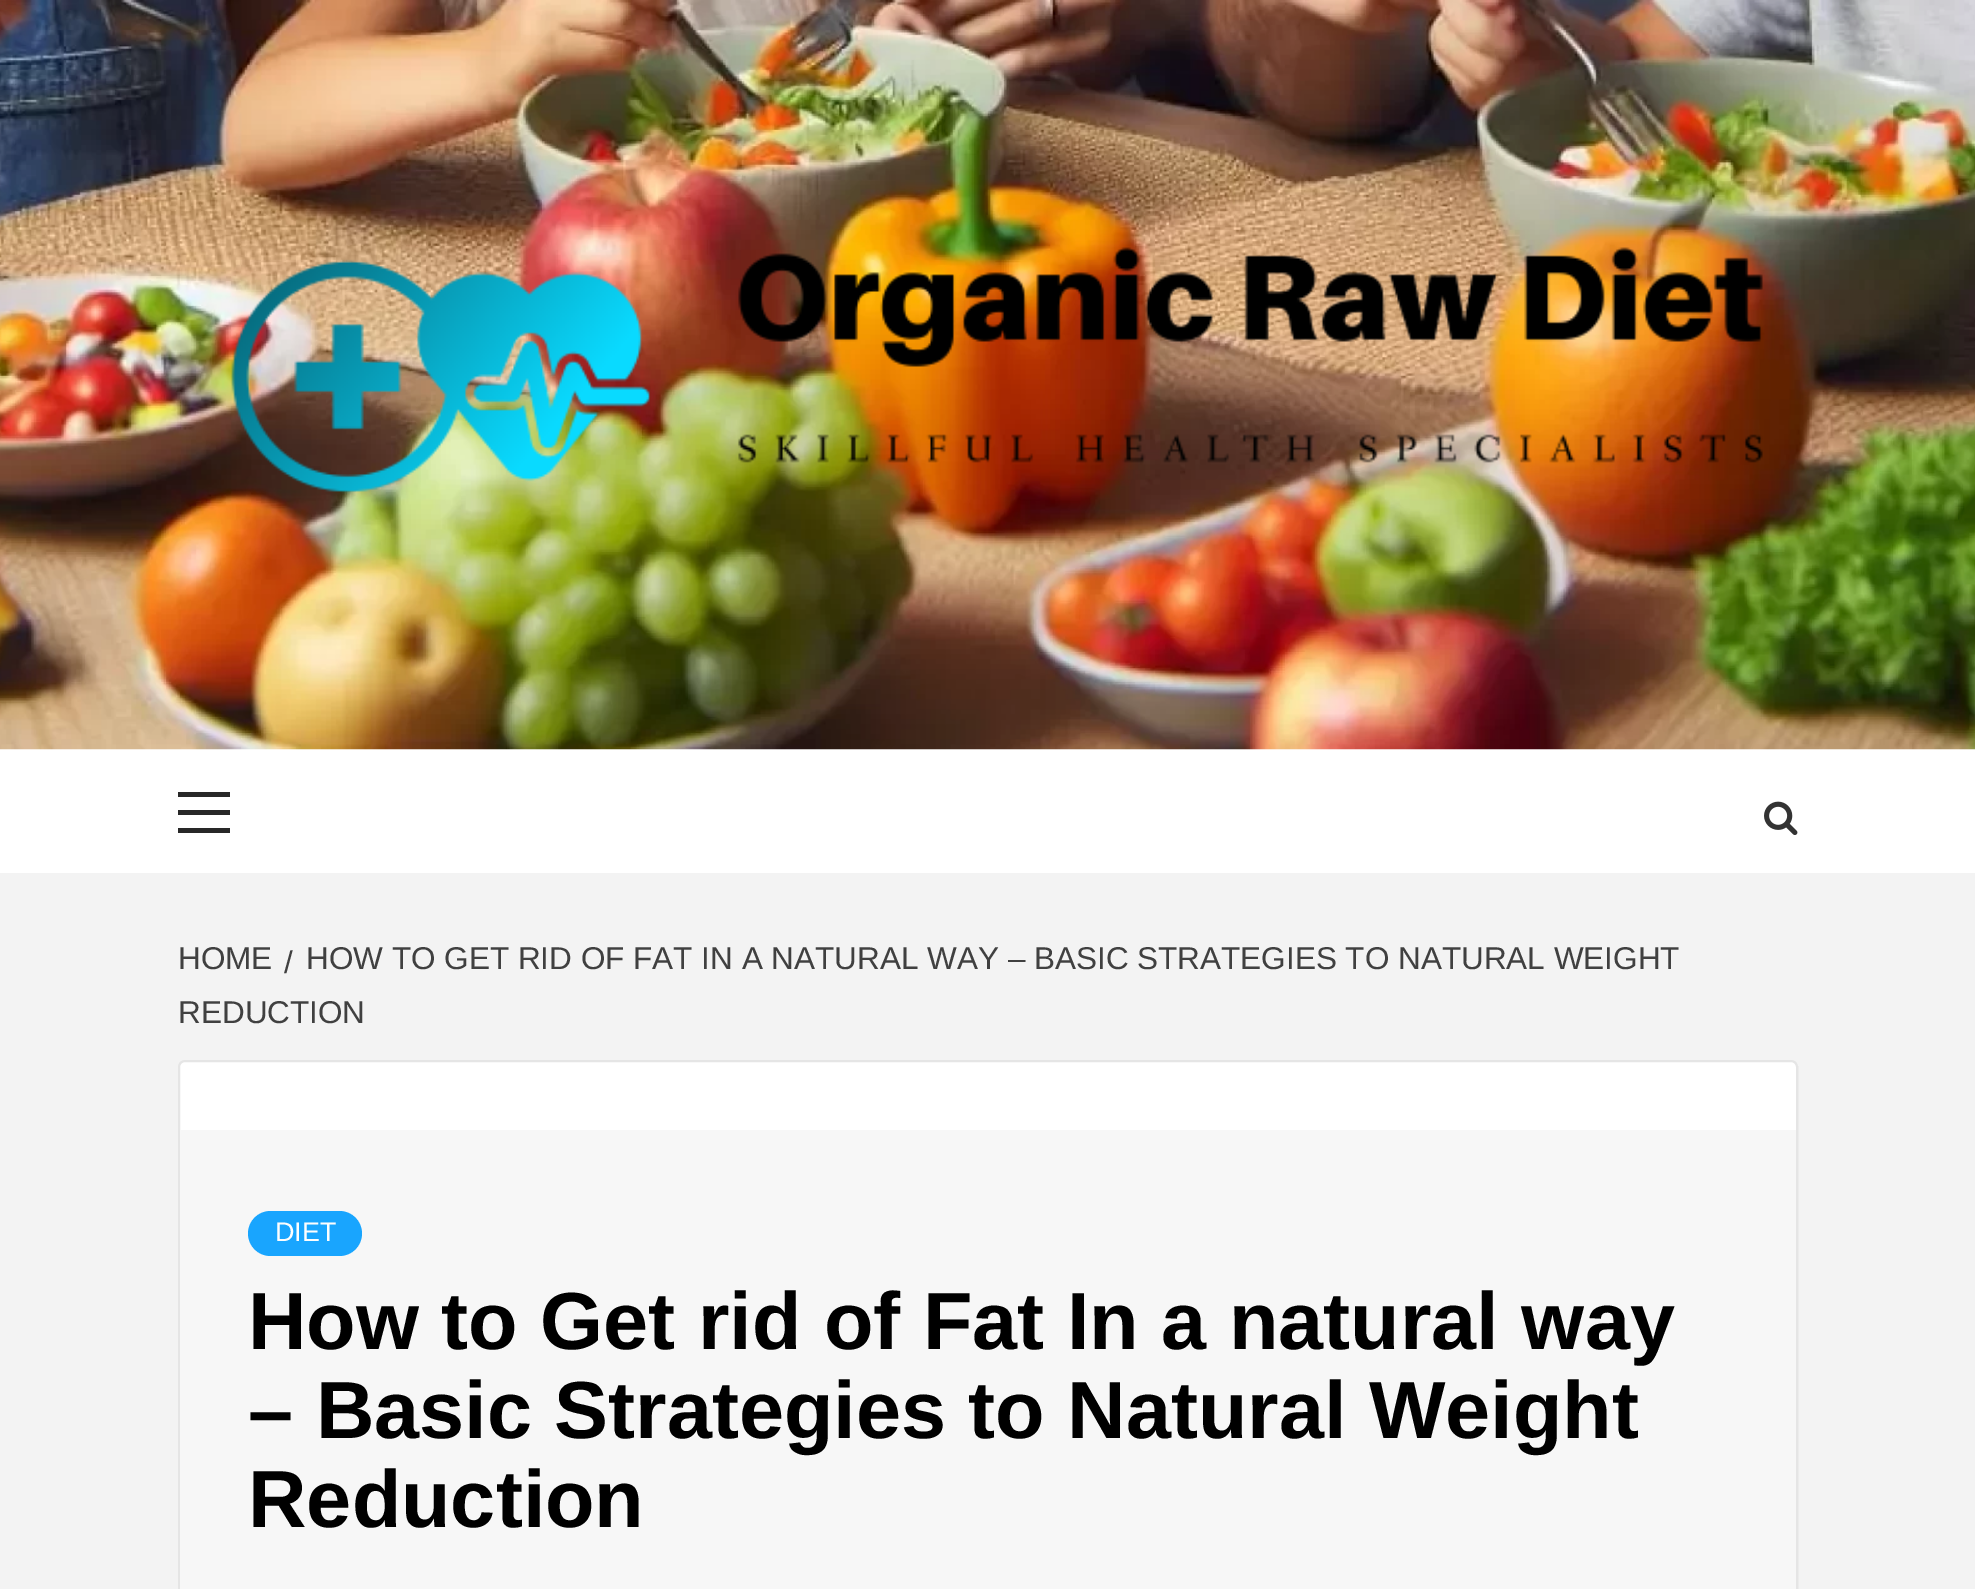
%!PS-Adobe-3.0
%%BoundingBox: 0 0 1975 1589
%%LanguageLevel: 3
%%Pages: 1
%%EndComments
%%BeginProlog
/f { fill } bind def
/S { stroke } bind def
/w { setlinewidth } bind def
/fn { [ exch dup neg 0 0 3 -1 roll 0 0 ] selectfont } def
/tx { moveto show } def
/bx { rectfill } def
/al { dup .setfillconstantalpha .setstrokeconstantalpha } def
/rr { 5 dict begin { /r /h /w /y /x } { exch def } forall
  x r add y moveto x w add y 2 copy h add r arct x w add y h add x 1 index r arct
  x y h add x y r arct x y 2 copy exch w add exch r arct closepath end } def
/im { 5 dict begin { /h /w /y /x /name } { exch def } forall
  gsave x y translate w h scale
  w h 8 [w 0 0 h 0 0] name (r) file false 3 colorimage grestore end } def
%%EndProlog
%%BeginSetup
<< /PageSize [1975 1589] /PageUsesTransparency true >> setpagedevice
%%EndSetup
%%Page: 1 1
0 .pushpdf14devicefilter
0 1589 translate 1 -1 scale
4 setmiterlimit
0.953 setgray
0 0 1975 1589 bx
1 setgray
0 749 1975 124 bx
(image0.raw) 0 0 1975 750 im
(image1.raw) 231 247 1532 247 im
0.157 setgray
178 810 52 5 bx
178 792 52 5 bx
178 828 52 5 bx
(image2.raw) 1764 801 34 34 im
/LiberationSans-Regular 31.5 fn
0.251 setgray
(HOME) 178 969 tx
(/) 284 973 tx
(HOW TO GET RID OF FAT IN A NATURAL WAY – BASIC STRATEGIES TO NATURAL WEIGHT) 306 969 tx
(REDUCTION) 178 1023 tx
1 setgray
178 1060 1620 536 7 rr f
0.1 al
0 0.004 0.004 setrgbcolor
2 w
179 1061 1618 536 6 rr S
1 al
0.969 setgray
180 1130 1616 459 bx
0.098 0.647 0.996 setrgbcolor
248 1211 114 45 22.5 rr f
/LiberationSans-Regular 27 fn
0.996 setgray
(DIET) 275 1241 tx
/LiberationSans-Bold 81 fn
0 setgray
(How to Get rid of Fat In a natural way) 248 1349 tx
(– Basic Strategies to Natural Weight) 248 1438 tx
(Reduction) 248 1527 tx
.poppdf14devicefilter showpage
%%EOF
